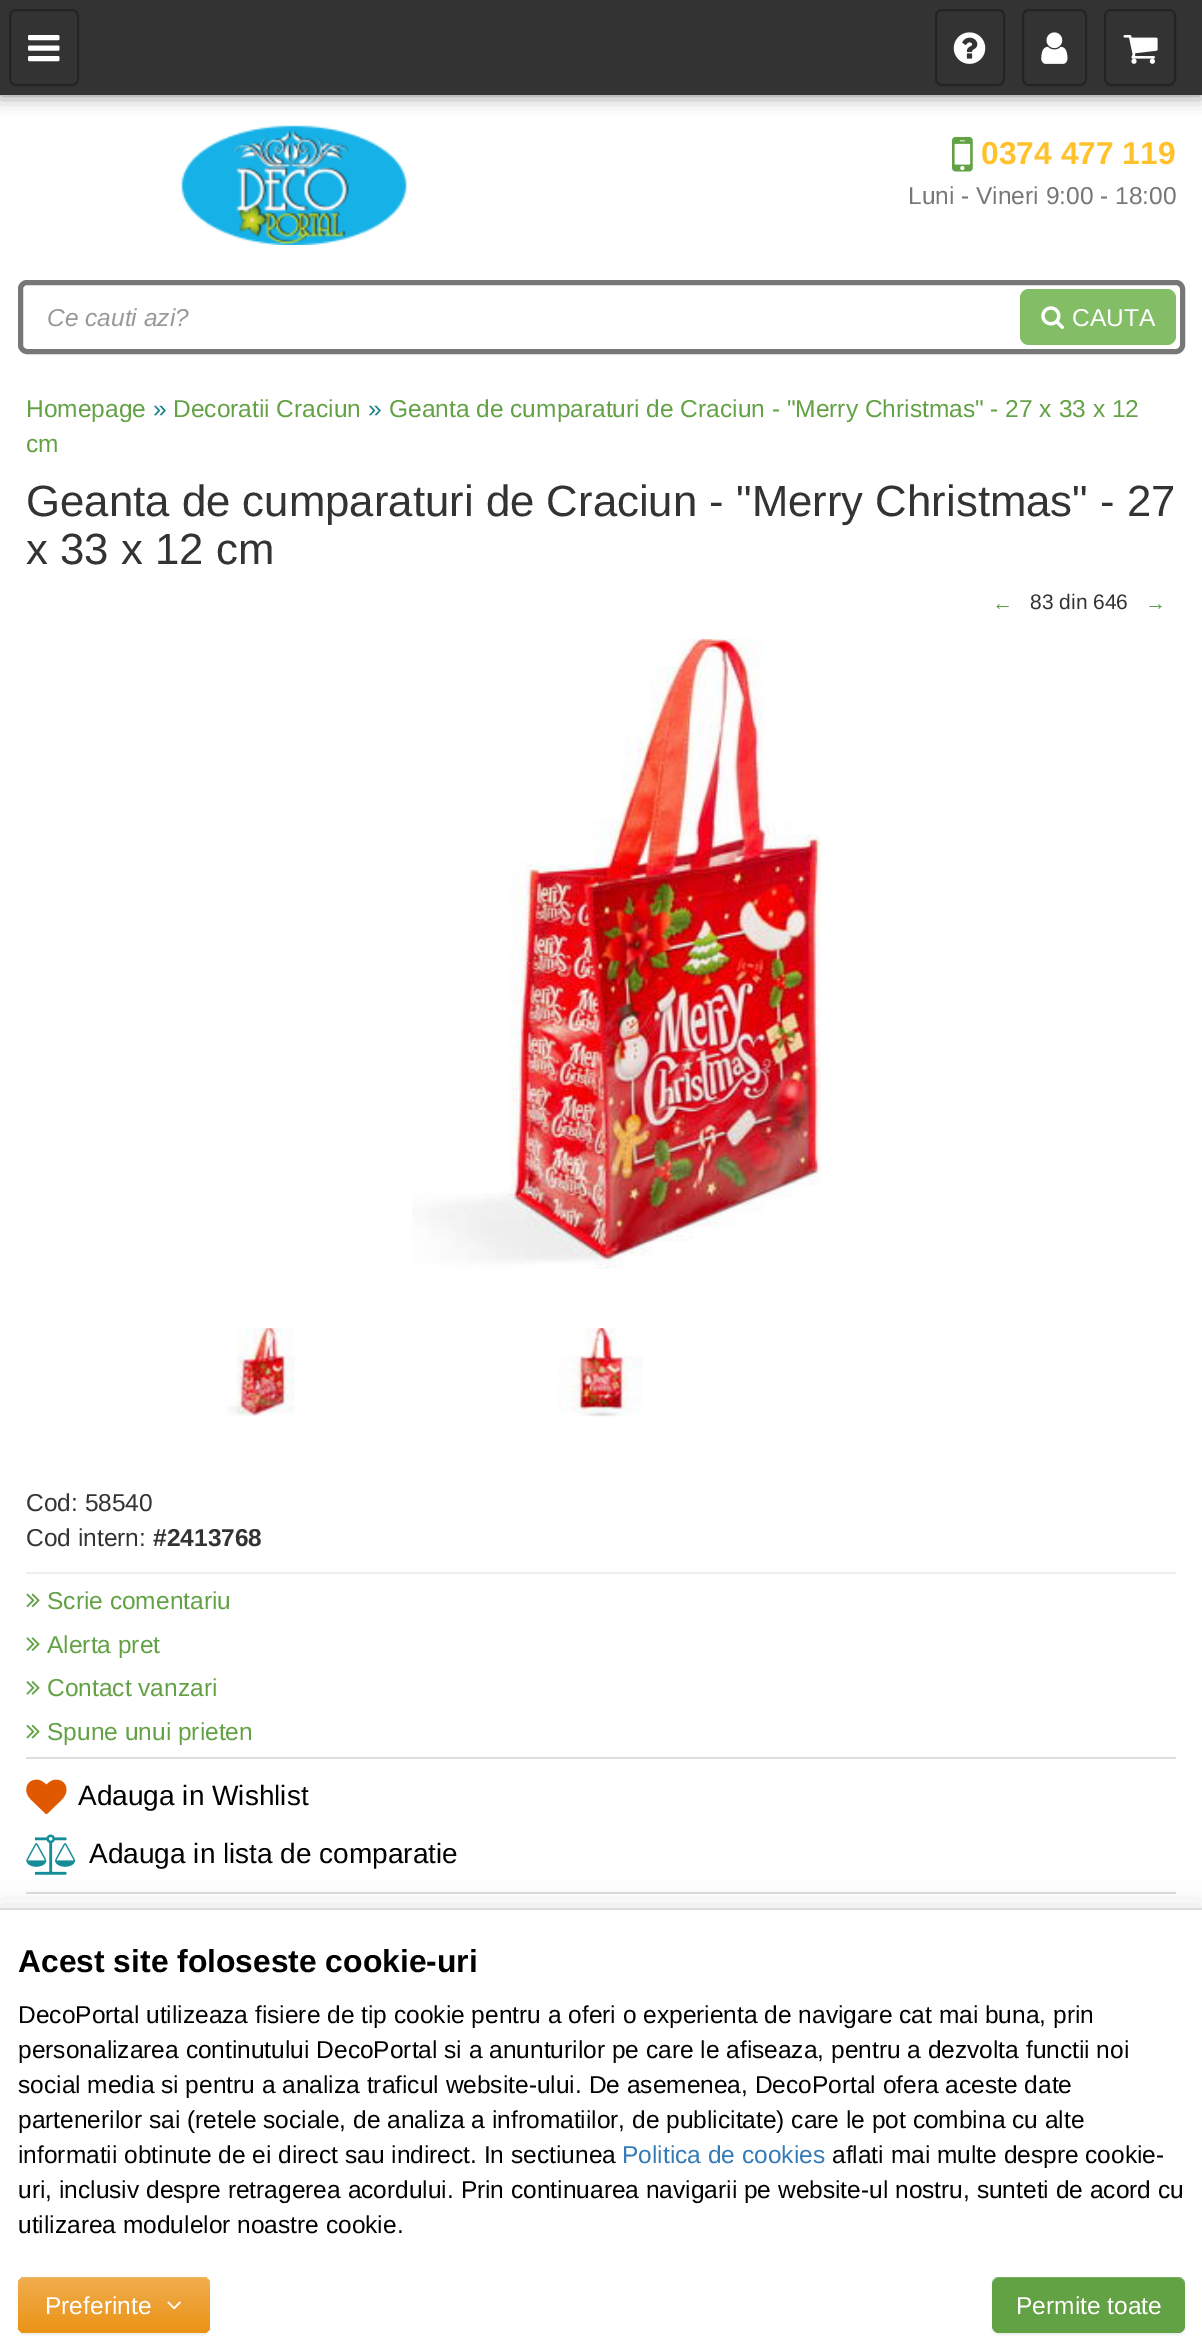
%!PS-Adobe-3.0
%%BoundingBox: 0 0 1202 2349
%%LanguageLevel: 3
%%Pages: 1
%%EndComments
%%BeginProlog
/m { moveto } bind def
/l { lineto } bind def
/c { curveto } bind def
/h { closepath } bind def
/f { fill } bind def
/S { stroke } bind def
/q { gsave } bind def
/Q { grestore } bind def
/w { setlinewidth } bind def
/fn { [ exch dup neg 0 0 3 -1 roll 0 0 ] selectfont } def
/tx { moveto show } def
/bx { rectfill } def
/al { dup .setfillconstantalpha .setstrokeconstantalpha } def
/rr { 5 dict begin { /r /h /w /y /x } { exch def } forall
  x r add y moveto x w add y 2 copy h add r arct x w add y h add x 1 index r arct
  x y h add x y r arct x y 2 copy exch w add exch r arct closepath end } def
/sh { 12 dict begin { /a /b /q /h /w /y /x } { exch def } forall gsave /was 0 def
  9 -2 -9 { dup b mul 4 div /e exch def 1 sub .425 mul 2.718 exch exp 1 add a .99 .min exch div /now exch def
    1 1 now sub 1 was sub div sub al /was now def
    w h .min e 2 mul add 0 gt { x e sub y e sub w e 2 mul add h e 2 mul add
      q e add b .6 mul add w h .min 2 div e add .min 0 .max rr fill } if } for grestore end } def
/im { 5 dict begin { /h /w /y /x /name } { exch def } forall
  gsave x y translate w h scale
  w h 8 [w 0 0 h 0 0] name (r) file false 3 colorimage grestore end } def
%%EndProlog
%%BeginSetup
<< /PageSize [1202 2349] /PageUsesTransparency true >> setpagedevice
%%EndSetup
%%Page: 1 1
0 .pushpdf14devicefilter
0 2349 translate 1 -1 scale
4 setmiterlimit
1 setgray
0 0 1202 2349 bx
0 setgray
0 0 1202 95 0 9 0.5 sh
0.2 setgray
0 0 1202 95 bx
0.141 setgray
2 w
10 10 68 75 6 rr S
(image0.raw) 28 35 32 27 im
936 10 68 75 6 rr S
(image1.raw) 953 32 33 32 im
1023 10 63 75 6 rr S
(image2.raw) 1041 32 27 32 im
1105 10 70 75 6 rr S
(image3.raw) 1123 35 35 29 im
(image4.raw) 181 125 226 120 im
(image5.raw) 952 136 21 36 im
/LiberationSans-Bold 31.8 fn
1 0.761 0.176 setrgbcolor
(0374 477 119) 981 164 tx
/LiberationSans-Regular 24.5 fn
0.467 setgray
(Luni - Vineri 9:00 - 18:00) 908 204 tx
5 w
20.5 282.5 1162 69 6.5 rr S
/LiberationSans-Italic 24.5 fn
0.6 setgray
(Ce cauti azi?) 47 326 tx
0.514 0.745 0.404 setrgbcolor
1020 289 156 56 9 rr f
(image6.raw) 1041 306 23 23 im
/LiberationSans-Regular 24.5 fn
1 setgray
(CAUTA) 1072 326 tx
0.384 0.631 0.267 setrgbcolor
(Homepage) 26 417 tx
0.102 0.51 0.541 setrgbcolor
(») 153 417 tx
0.384 0.631 0.267 setrgbcolor
(Decoratii Craciun) 173 417 tx
0.102 0.51 0.541 setrgbcolor
(») 368 417 tx
0.384 0.631 0.267 setrgbcolor
(Geanta de cumparaturi de Craciun - "Merry Christmas" - 27 x 33 x 12) 389 417 tx
(cm) 26 452 tx
/LiberationSans-Regular 43.75 fn
0.2 setgray
(Geanta de cumparaturi de Craciun - "Merry Christmas" - 27) 26 516 tx
(x 33 x 12 cm) 26 564 tx
/LiberationSans-Regular 21 fn
0.384 0.631 0.267 setrgbcolor
(←) 992 610 tx
0.2 setgray
(83 din 646) 1030 609 tx
0.384 0.631 0.267 setrgbcolor
(→) 1145 610 tx
(image7.raw) 412 639 409 630 im
(image8.raw) 225 1328 70 89 im
(image9.raw) 558 1328 85 89 im
/LiberationSans-Regular 24.5 fn
0.2 setgray
(Cod: 58540) 26 1511 tx
(Cod intern:) 26 1546 tx
/LiberationSans-Bold 24.5 fn
(#2413768) 153 1546 tx
0.933 setgray
26 1572 1150 2 bx
(image10.raw) 26 1593 14 15 im
/LiberationSans-Regular 24.5 fn
0.384 0.631 0.267 setrgbcolor
(Scrie comentariu) 47 1609 tx
(image11.raw) 26 1637 14 14 im
(Alerta pret) 47 1653 tx
(image12.raw) 26 1681 14 14 im
(Contact vanzari) 47 1696 tx
(image13.raw) 26 1724 14 15 im
(Spune unui prieten) 47 1740 tx
0.867 setgray
26 1757 1150 2 bx
(image14.raw) 26 1779 41 36 im
/LiberationSans-Regular 28 fn
0 setgray
(Adauga in Wishlist) 78 1805 tx
0.867 setgray
26 1892 1150 2 bx
(image15.raw) 26 1834 50 41 im
0 setgray
(Adauga in lista de comparatie) 89 1863 tx
0 1906 1202 443 0 13 0.1 sh
1 setgray
0 1910 1202 439 bx
0.867 setgray
0 1908 1202 2 bx
/LiberationSans-Bold 31.8 fn
0 setgray
(Acest site foloseste cookie-uri) 18 1972 tx
/LiberationSans-Regular 24.5 fn
(DecoPortal utilizeaza fisiere de tip cookie pentru a oferi o experienta de navigare cat mai buna, prin) 18 2023 tx
(personalizarea continutului DecoPortal si a anunturilor pe care le afiseaza, pentru a dezvolta functii noi) 18 2058 tx
(social media si pentru a analiza traficul website-ului. De asemenea, DecoPortal ofera aceste date) 18 2093 tx
(partenerilor sai \(retele sociale, de analiza a infromatiilor, de publicitate\) care le pot combina cu alte) 18 2128 tx
(informatii obtinute de ei direct sau indirect. In sectiunea) 18 2163 tx
0.2 0.478 0.718 setrgbcolor
(Politica de cookies) 622 2163 tx
0 setgray
(aflati mai multe despre cookie-) 832 2163 tx
(uri, inclusiv despre retragerea acordului. Prin continuarea navigarii pe website-ul nostru, sunteti de acord cu) 18 2198 tx
(utilizarea modulelor noastre cookie.) 18 2233 tx
18 2279 192 56 7 1 0.07 sh
q 18 2277 192 56 7 rr clip newpath
<< /ShadingType 2 /ColorSpace /DeviceRGB /Coords [114 2277 114 2333] /Extend [true true] /Function << /FunctionType 2 /Domain [0 1] /C0 [0.941 0.678 0.306] /C1 [0.922 0.576 0.086] /N 1 >> >> shfill Q
0.15 al
1 setgray
24 2278 m 203 2278 l 207 2278 210 2282 210 2286 c 210 2284 l 210 2280 207 2277 203 2277 c 25 2277 l 21 2277 18 2280 18 2284 c 18 2286 l 18 2282 21 2278 24 2278 c h f
1 al
(Preferinte) 45 2314 tx
(image16.raw) 167 2301 14 9 im
0 setgray
992 2279 193 56 7 1 0.07 sh
0.384 0.631 0.267 setrgbcolor
992 2277 193 56 7 rr f
0.15 al
1 setgray
999 2278 m 1178 2278 l 1182 2278 1185 2282 1185 2286 c 1185 2284 l 1185 2280 1182 2277 1178 2277 c 999 2277 l 995 2277 992 2280 992 2284 c 992 2286 l 992 2282 995 2278 999 2278 c h f
1 al
(Permite toate) 1016 2314 tx
.poppdf14devicefilter showpage
%%EOF
